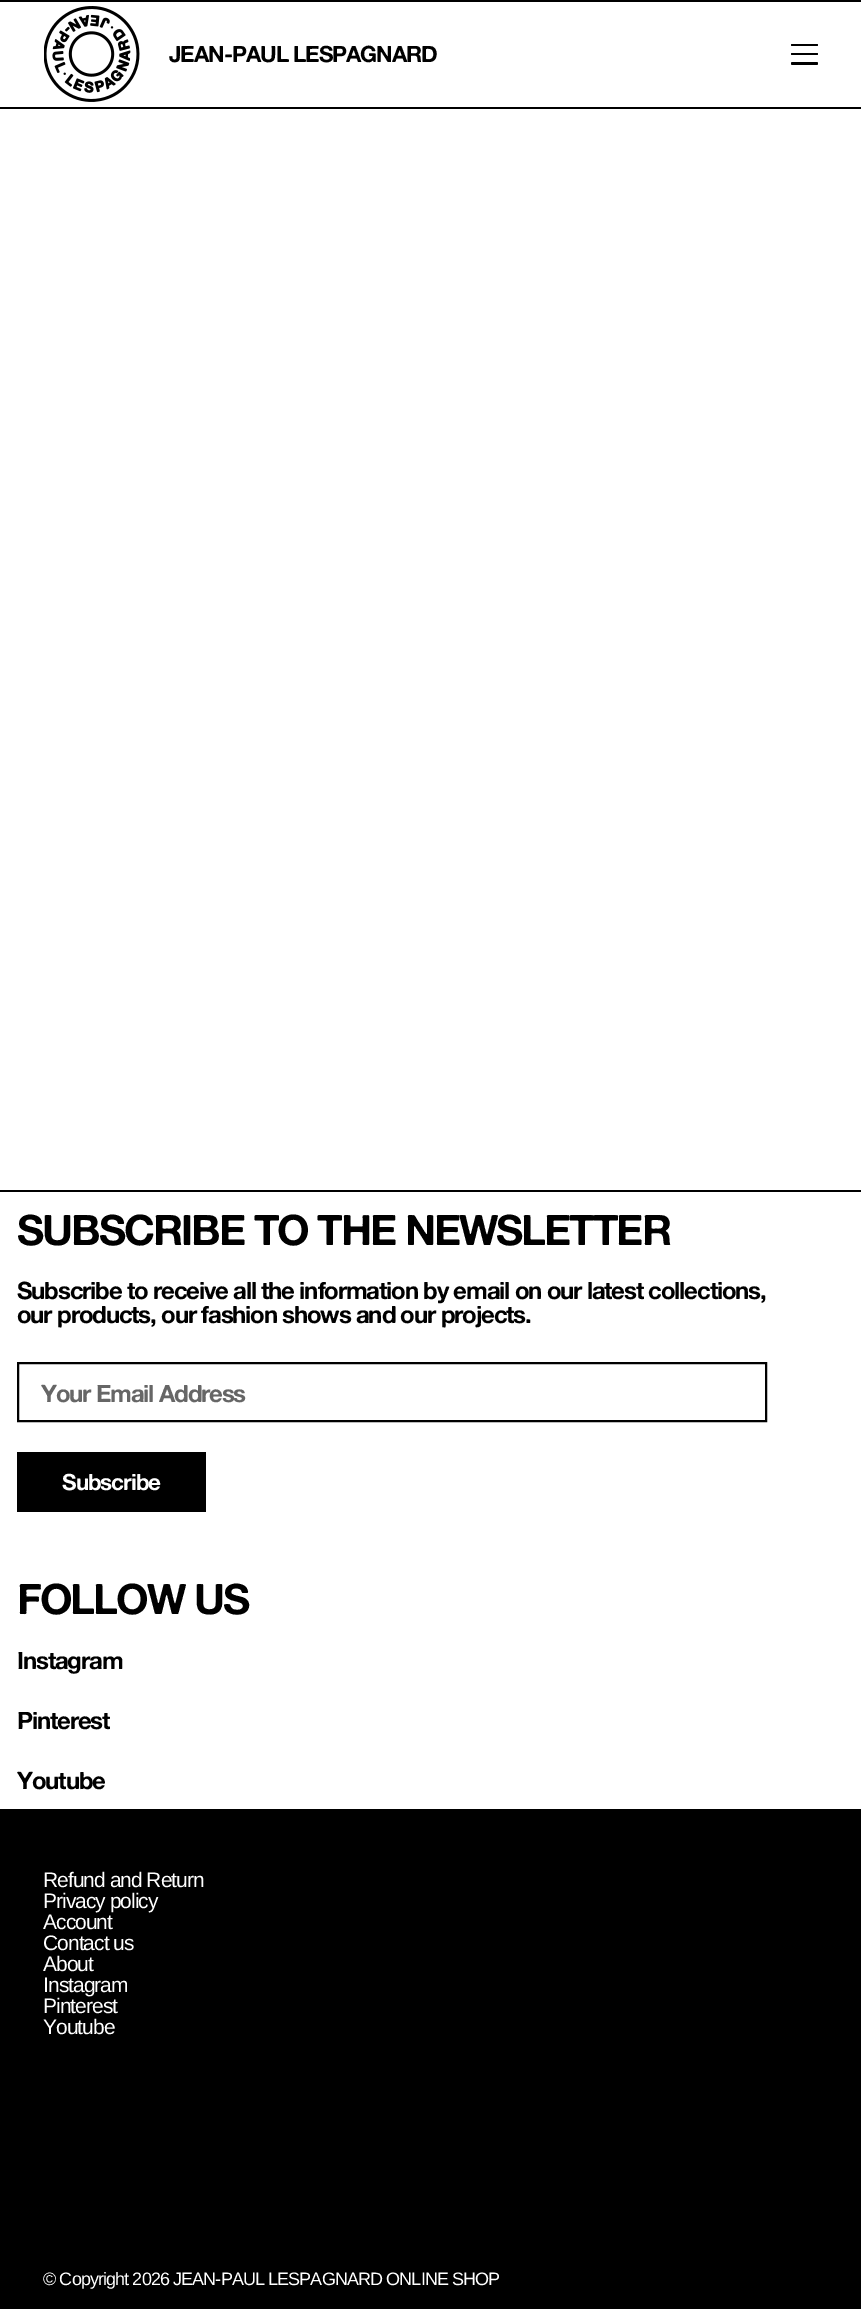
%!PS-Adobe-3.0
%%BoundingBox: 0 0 861 2309
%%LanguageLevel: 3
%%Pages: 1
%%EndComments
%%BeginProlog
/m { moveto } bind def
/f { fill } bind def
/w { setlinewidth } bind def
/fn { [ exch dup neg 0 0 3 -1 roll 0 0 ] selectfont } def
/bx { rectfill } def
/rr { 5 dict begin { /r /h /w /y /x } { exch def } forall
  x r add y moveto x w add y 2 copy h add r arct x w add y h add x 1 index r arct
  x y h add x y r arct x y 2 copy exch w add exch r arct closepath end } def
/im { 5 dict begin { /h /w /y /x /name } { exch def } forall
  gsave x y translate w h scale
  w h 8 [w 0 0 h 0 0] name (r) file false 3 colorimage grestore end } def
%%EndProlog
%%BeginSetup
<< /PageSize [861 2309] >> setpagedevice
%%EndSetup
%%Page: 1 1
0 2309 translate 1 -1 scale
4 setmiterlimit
1 setgray
0 0 861 2309 bx
0 setgray
0 0 861 2 bx
0 107 861 2 bx
(image0.raw) 44 6 96 96 im
/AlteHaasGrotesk-Bold 22.5 fn
169 62 m -1.1 0 (JEAN-PAUL LESPAGNARD) ashow
791 44 27 2 1 rr f
791 53 27 2 1 rr f
791 62 27 3 1.5 rr f
0 1190 861 2 bx
/AlteHaasGrotesk-Bold 42 fn
17 1245 m -2.1 0 (SUBSCRIBE TO THE NEWSLETTER) ashow
/AlteHaasGrotesk-Bold 24 fn
17 1299 m -1.2 0 (Subscribe to receive all the information by email on our latest collections,) ashow
17 1323 m -1.2 0 (our products, our fashion shows and our projects.) ashow
2 w
18 1363 748 58 rectstroke
0.4 setgray
41 1402 m -1.2 0 (Your Email Address) ashow
0 setgray
17 1452 189 60 bx
/AlteHaasGrotesk-Bold 22.5 fn
1 setgray
62 1490 m -1.1 0 (Subscribe) ashow
/AlteHaasGrotesk-Bold 42 fn
0 setgray
17 1614 m -2.1 0 (FOLLOW US) ashow
/AlteHaasGrotesk-Bold 24 fn
17 1669 m -1.2 0 (Instagram) ashow
17 1729 m -1.2 0 (Pinterest) ashow
17 1789 m -1.2 0 (Youtube) ashow
0 1809 861 500 bx
/LiberationSans-Regular 21 fn
1 setgray
43 1887 m -1 0 (Refund and Return) ashow
43 1908 m -1 0 (Privacy policy) ashow
43 1929 m -1 0 (Account) ashow
43 1950 m -1 0 (Contact us) ashow
43 1971 m -1 0 (About) ashow
43 1992 m -1 0 (Instagram) ashow
43 2013 m -1 0 (Pinterest) ashow
43 2034 m -1 0 (Youtube) ashow
/LiberationSans-Regular 18 fn
43 2285 m -0.9 0 (© Copyright 2026 JEAN-PAUL LESPAGNARD ONLINE SHOP) ashow
showpage
%%EOF
